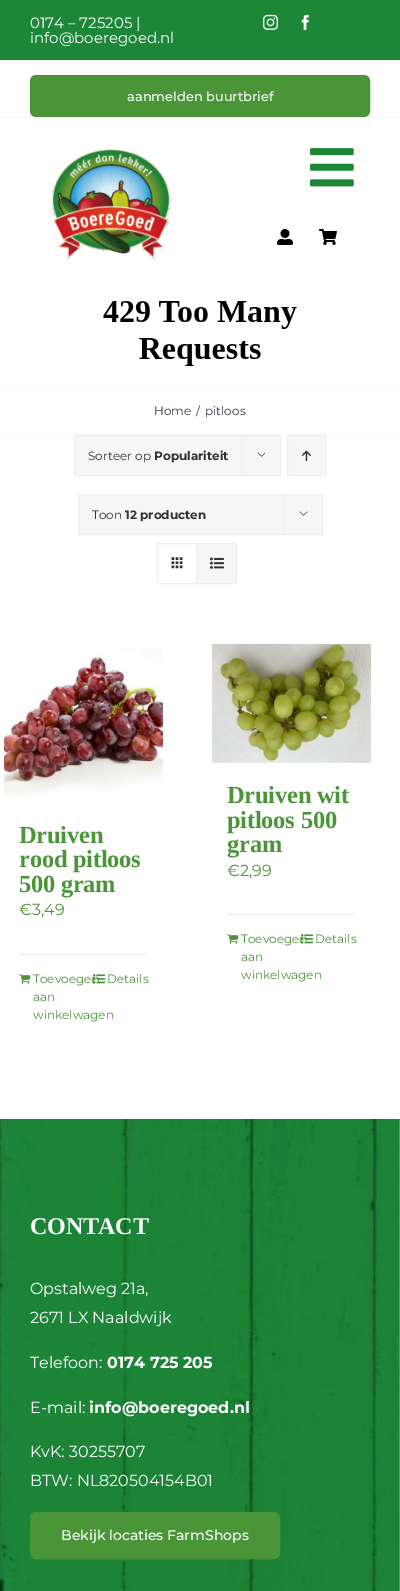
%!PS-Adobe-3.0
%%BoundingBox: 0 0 400 1591
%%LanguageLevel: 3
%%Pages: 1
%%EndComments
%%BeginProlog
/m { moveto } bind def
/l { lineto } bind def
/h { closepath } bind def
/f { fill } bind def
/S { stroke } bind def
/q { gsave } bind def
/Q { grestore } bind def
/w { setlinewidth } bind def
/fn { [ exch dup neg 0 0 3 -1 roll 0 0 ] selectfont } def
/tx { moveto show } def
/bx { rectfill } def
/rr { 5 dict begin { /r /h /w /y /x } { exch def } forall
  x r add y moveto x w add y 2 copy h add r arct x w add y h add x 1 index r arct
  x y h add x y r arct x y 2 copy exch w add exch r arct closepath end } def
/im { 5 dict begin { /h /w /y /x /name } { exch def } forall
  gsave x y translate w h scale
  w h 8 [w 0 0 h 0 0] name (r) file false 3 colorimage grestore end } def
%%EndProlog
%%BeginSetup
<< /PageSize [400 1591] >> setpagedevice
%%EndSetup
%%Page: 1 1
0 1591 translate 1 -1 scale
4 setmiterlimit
1 setgray
0 0 400 1591 bx
0.11 0.529 0.216 setrgbcolor
0 0 400 60 bx
0.945 setgray
0 60 400 1 bx
/Montserrat-Regular 15 fn
1 setgray
(0174 – 725205 |) 30 28 tx
(info@boeregoed.nl) 30 43 tx
(image0.raw) 263 14 15 16 im
(image1.raw) 301 14 8 16 im
0.29 0.584 0.216 setrgbcolor
31 76 338 40 5 rr q f Q
2 w
S
/Montserrat-Medium 13 fn
1 setgray
(aanmelden buurtbrief) 127 101 tx
0.945 0.965 0.976 setrgbcolor
0 117 400 1 bx
(image2.raw) 51 148 120 112 im
(image3.raw) 310 148 44 39 im
(image4.raw) 277 229 16 16 im
(image5.raw) 319 229 18 16 im
(image6.raw) 103 301 194 65 im
0.973 0.965 0.98 setrgbcolor
0 385 400 1 bx
0 434 400 1 bx
/Montserrat-Regular 12 fn
0.235 0.216 0.267 setrgbcolor
(Home) 154 415 tx
(/) 196 415 tx
(pitloos) 205 415 tx
0.965 setgray
74.5 435.5 m 280.5 435.5 l 280.5 475.5 l 74.5 475.5 l h q f Q
0.941 0.929 0.961 setrgbcolor
1 w
S
0.2 setgray
(Sorteer op) 88 460 tx
/Montserrat-Bold 12 fn
(Populariteit) 154 460 tx
0.941 0.929 0.961 setrgbcolor
241 435 1 39 bx
(image7.raw) 257 452 9 5 im
0.965 setgray
287.5 435.5 m 325.5 435.5 l 325.5 475.5 l 287.5 475.5 l h q f Q
0.941 0.929 0.961 setrgbcolor
S
(image8.raw) 302 450 9 12 im
0.965 setgray
78.5 494.5 m 322.5 494.5 l 322.5 534.5 l 78.5 534.5 l h q f Q
0.941 0.929 0.961 setrgbcolor
S
/Montserrat-Regular 12 fn
0.2 setgray
(Toon) 92 519 tx
/Montserrat-Bold 12 fn
(12 producten) 125 519 tx
0.941 0.929 0.961 setrgbcolor
283 494 1 39 bx
(image7.raw) 299 511 9 5 im
157.5 543.5 79 40 rectstroke
196 544 1 39 bx
(image9.raw) 171 557 12 12 im
0.965 setgray
197 544 39 39 bx
(image10.raw) 210 557 14 12 im
(image11.raw) 4 647 159 150 im
/LiberationSerif-Bold 24.5 fn
0.29 0.584 0.216 setrgbcolor
19 843 m -0.25 0 (Druiven) ashow
19 867 m -0.25 0 (rood pitloos) ashow
19 892 m -0.25 0 (500 gram) ashow
/Montserrat-Regular 16 fn
(€3,49) 19 915 tx
0.925 0.925 0.929 setrgbcolor
19 954 129 1 bx
(image12.raw) 19 974 12 10 im
/Montserrat-Regular 12 fn
0.29 0.584 0.216 setrgbcolor
(Toevoegen) 33 983 tx
(aan) 33 1001 tx
(winkelwagen) 33 1019 tx
(image13.raw) 93 974 12 10 im
(Details) 107 983 tx
(image14.raw) 212 644 159 119 im
/LiberationSerif-Bold 24.5 fn
227 803 m -0.25 0 (Druiven wit) ashow
227 828 m -0.25 0 (pitloos 500) ashow
227 852 m -0.25 0 (gram) ashow
/Montserrat-Regular 16 fn
(€2,99) 227 876 tx
0.925 0.925 0.929 setrgbcolor
227 914 129 1 bx
(image12.raw) 227 934 12 10 im
/Montserrat-Regular 12 fn
0.29 0.584 0.216 setrgbcolor
(Toevoegen) 241 943 tx
(aan) 241 961 tx
(winkelwagen) 241 979 tx
(image15.raw) 301 934 12 10 im
(Details) 315 943 tx
(image16.raw) 0 1119 400 472 im
/LiberationSerif-Bold 24 fn
1 setgray
30 1234 m -0.25 0 (CONTACT) ashow
/Montserrat-Regular 16 fn
(Opstalweg 21a,) 30 1294 tx
(2671 LX Naaldwijk) 30 1323 tx
(Telefoon:) 30 1368 tx
/Montserrat-Bold 16 fn
(0174 725 205) 107 1368 tx
/Montserrat-Regular 16 fn
(E-mail:) 30 1413 tx
/Montserrat-Bold 16 fn
(info@boeregoed.nl) 89 1413 tx
/Montserrat-Regular 16 fn
(KvK: 30255707) 30 1457 tx
(BTW: NL820504154B01) 30 1486 tx
0.29 0.584 0.216 setrgbcolor
31 1513 248 45 5 rr q f Q
2 w
S
/Montserrat-Medium 14 fn
1 setgray
(Bekijk locaties FarmShops) 61 1540 tx
showpage
%%EOF
